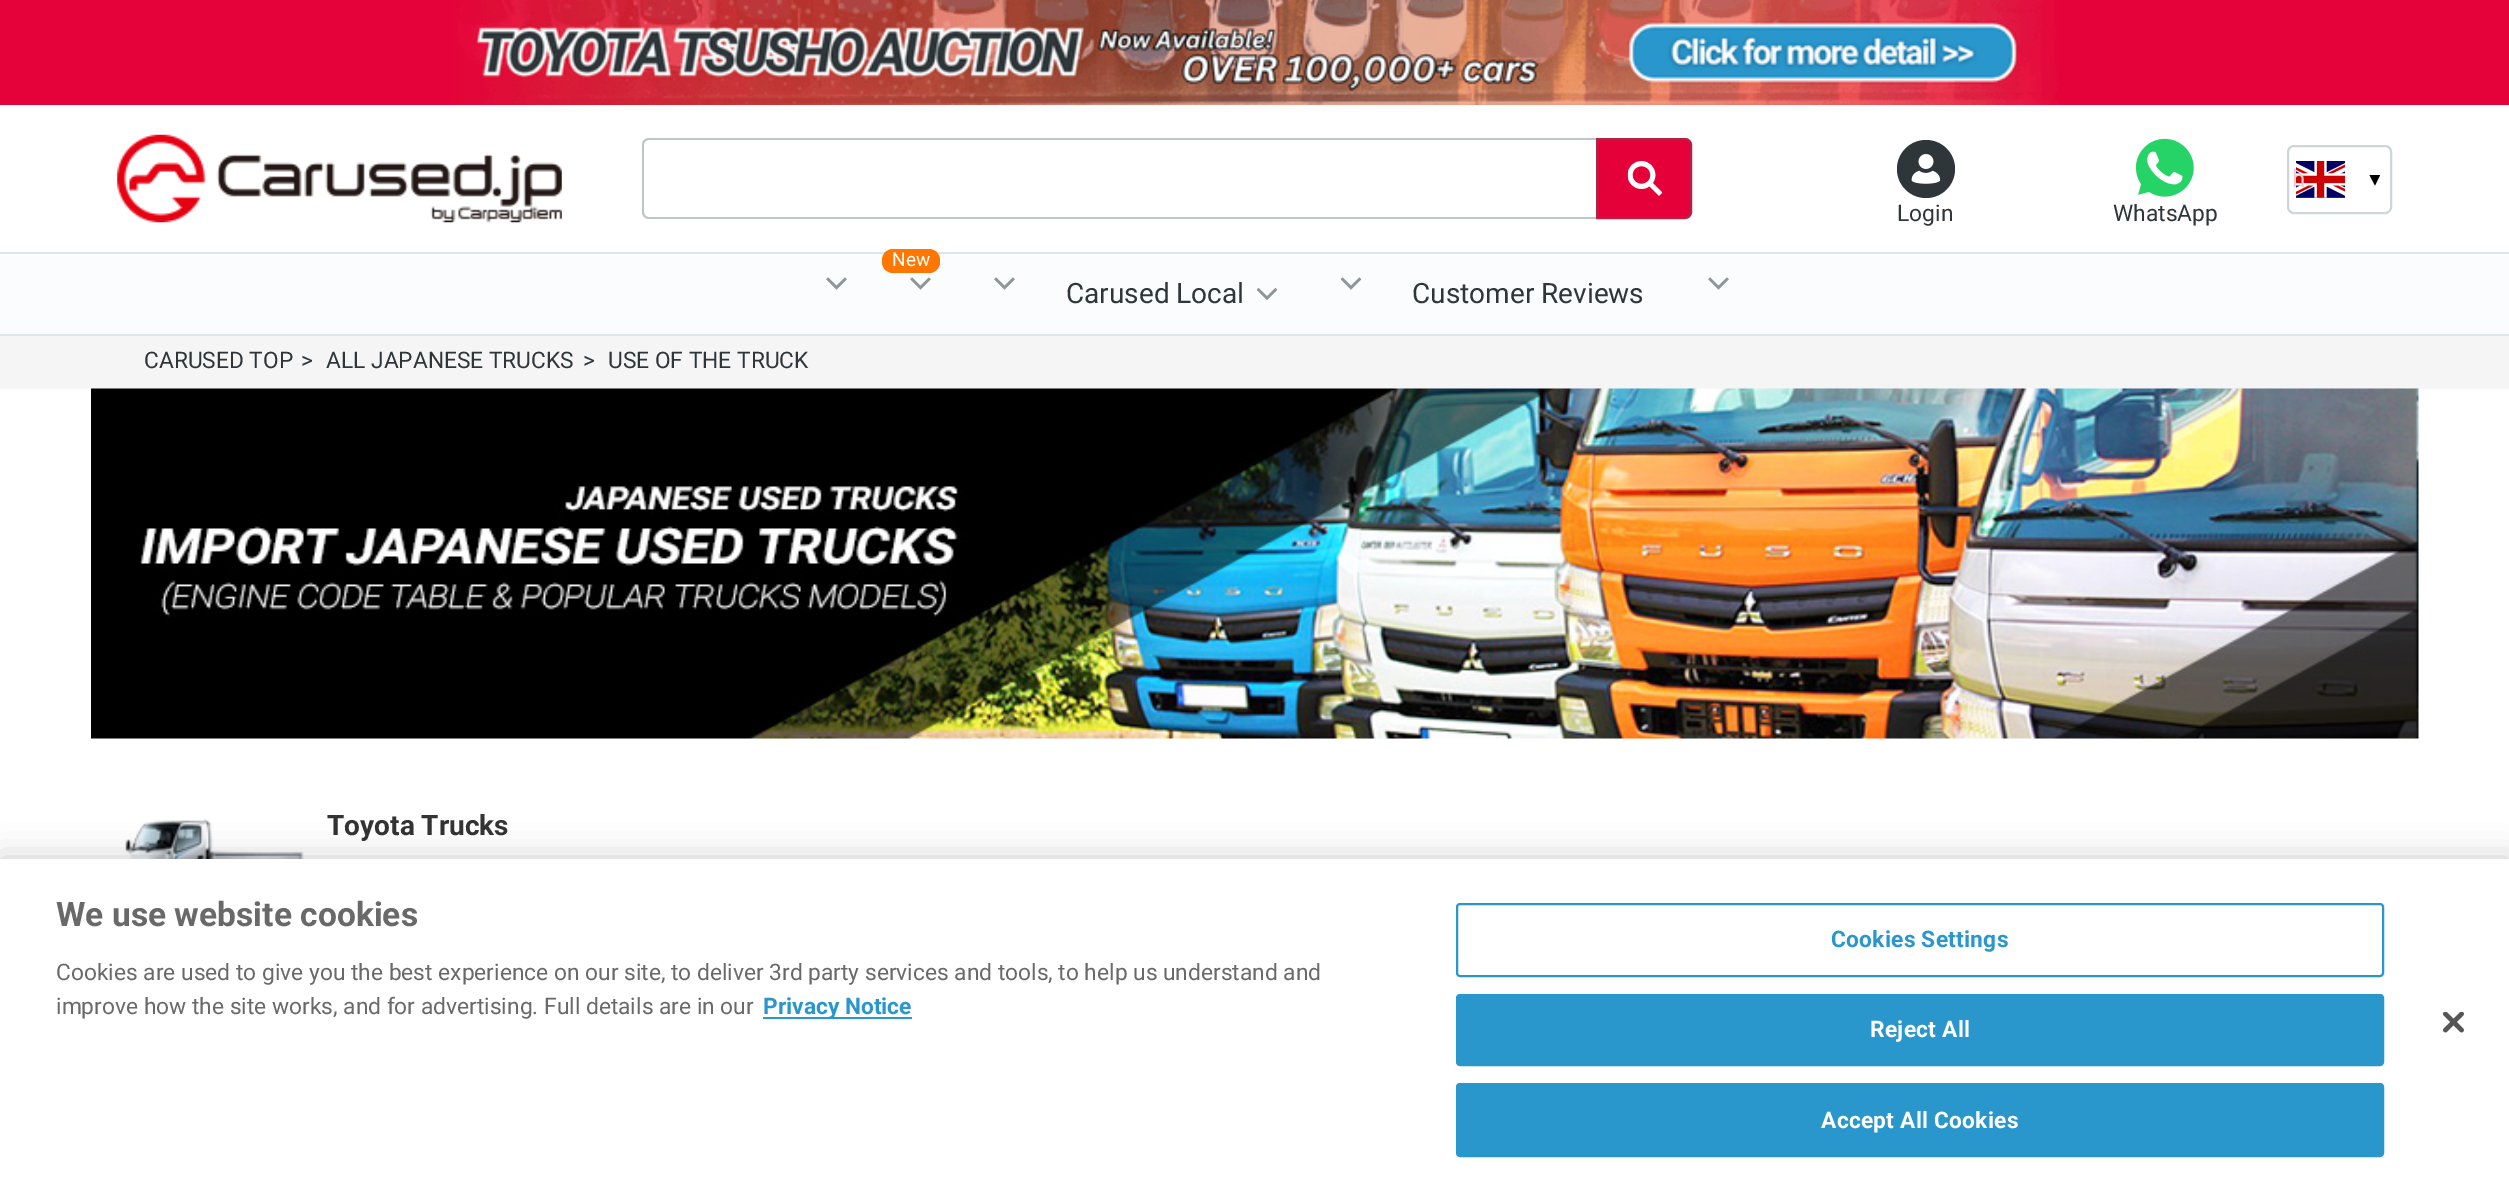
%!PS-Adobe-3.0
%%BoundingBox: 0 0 2509 1191
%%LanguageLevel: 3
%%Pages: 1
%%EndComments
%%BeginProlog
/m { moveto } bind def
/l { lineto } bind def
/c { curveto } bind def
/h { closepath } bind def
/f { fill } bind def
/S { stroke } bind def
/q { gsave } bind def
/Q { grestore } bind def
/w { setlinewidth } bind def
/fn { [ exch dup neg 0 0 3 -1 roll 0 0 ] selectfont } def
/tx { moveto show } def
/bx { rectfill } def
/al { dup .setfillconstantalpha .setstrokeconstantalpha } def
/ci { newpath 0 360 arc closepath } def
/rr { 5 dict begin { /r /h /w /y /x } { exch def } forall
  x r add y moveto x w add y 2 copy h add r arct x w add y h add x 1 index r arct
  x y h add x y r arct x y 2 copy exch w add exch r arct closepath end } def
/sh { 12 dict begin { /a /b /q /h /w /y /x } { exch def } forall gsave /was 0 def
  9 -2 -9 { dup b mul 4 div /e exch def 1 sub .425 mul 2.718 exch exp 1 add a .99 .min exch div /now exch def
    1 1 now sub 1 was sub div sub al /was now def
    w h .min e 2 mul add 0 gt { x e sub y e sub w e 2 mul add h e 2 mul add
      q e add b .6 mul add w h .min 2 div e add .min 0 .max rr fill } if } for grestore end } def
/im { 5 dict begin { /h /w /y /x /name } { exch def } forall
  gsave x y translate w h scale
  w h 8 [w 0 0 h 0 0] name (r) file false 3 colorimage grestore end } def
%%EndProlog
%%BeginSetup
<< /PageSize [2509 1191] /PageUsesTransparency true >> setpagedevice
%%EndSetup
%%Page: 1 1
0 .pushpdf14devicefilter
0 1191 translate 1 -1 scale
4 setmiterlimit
1 setgray
0 0 2509 1191 bx
0.871 0.902 0.918 setrgbcolor
0 334 2509 2 bx
0.898 0.004 0.224 setrgbcolor
0 0 2509 105 bx
(image0.raw) 452 0 1608 105 im
(image1.raw) 117 134 445 89 im
0.745 0.776 0.792 setrgbcolor
649 138 m 1596 138 l 1596 219 l 649 219 l 645 219 642 216 642 212 c 642 145 l 642 141 645 138 649 138 c h 649 140 m 1596 140 l 1596 217 l 649 217 l 646 217 644 215 644 212 c 644 145 l 644 142 646 140 649 140 c h eofill
0.898 0 0.224 setrgbcolor
1597 139 m 1685 139 l 1688.5 139 1691 141.5 1691 145 c 1691 212 l 1691 215.5 1688.5 218 1685 218 c 1597 218 l h q f Q
0.698 0.141 0.278 setrgbcolor
2 w
S
(image2.raw) 1627 161 36 35 im
0.808 0.839 0.855 setrgbcolor
2288 146 103 67 6 rr S
(image3.raw) 2296 161 49 37 im
0 setgray
2369.5 175 m 2380 175 l 2375 185.5 l h f
/Roboto-Regular 24 fn
0.933 0.788 0.792 setrgbcolor
(h) 2292 187 tx
0.18 0.212 0.227 setrgbcolor
1926 169 29 ci f
(image4.raw) 1911 154 30 30 im
/Roboto-Regular 22.75 fn
(Login) 1897 221 tx
(image5.raw) 2135 138 59 59 im
(WhatsApp) 2113 221 tx
0.98 0.988 0.992 setrgbcolor
0 254 2509 80 bx
0.871 0.902 0.918 setrgbcolor
0 252 2509 2 bx
1 0.467 0 setrgbcolor
882 249 58 24 11 rr f
/Roboto-Regular 19 fn
1 setgray
(New) 892 266 tx
(image6.raw) 910 277 21 13 im
(image6.raw) 826 277 21 13 im
(image6.raw) 994 277 21 13 im
/Roboto-Regular 28 fn
0.18 0.212 0.227 setrgbcolor
(Carused Local) 1066 303 tx
(image7.raw) 1256 287 22 13 im
(image8.raw) 1340 277 22 13 im
(Customer Reviews) 1412 303 tx
(image6.raw) 1708 277 21 13 im
0.961 setgray
0 336 2509 53 bx
/Roboto-Regular 22.75 fn
0.18 0.212 0.227 setrgbcolor
(CARUSED TOP) 144 368 tx
(>) 301 368 tx
(ALL JAPANESE TRUCKS) 326 368 tx
(>) 583 368 tx
(USE OF THE TRUCK) 608 368 tx
(image9.raw) 91 388 2328 351 im
(image10.raw) 125 818 179 41 im
/Roboto-Bold 28 fn
0.2 setgray
(Toyota Trucks) 327 835 tx
0 setgray
0 859 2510 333 0 16 0.2 sh
1 setgray
0 859 2509 332 bx
/Roboto-Bold 33.6 fn
0.412 setgray
(We use website cookies) 56 926 tx
/Roboto-Regular 22.75 fn
(Cookies are used to give you the best experience on our site, to deliver 3rd party services and tools, to help us understand and) 56 980 tx
(improve how the site works, and for advertising. Full details are in our) 56 1014 tx
0.161 0.588 0.8 setrgbcolor
763 1017 149 2 bx
/Roboto-Bold 22.75 fn
(Privacy Notice) 763 1014 tx
1457 904 926 72 3 rr S
1831 947 m 0.25 0 (Cookies Settings) ashow
1457 995 926 70 3 rr q f Q
S
1 setgray
1870 1037 m 0.25 0 (Reject All) ashow
0.161 0.588 0.8 setrgbcolor
1457 1084 926 72 3 rr q f Q
S
1 setgray
1821 1128 m 0.25 0 (Accept All Cookies) ashow
(image11.raw) 2443 1012 21 21 im
.poppdf14devicefilter showpage
%%EOF
